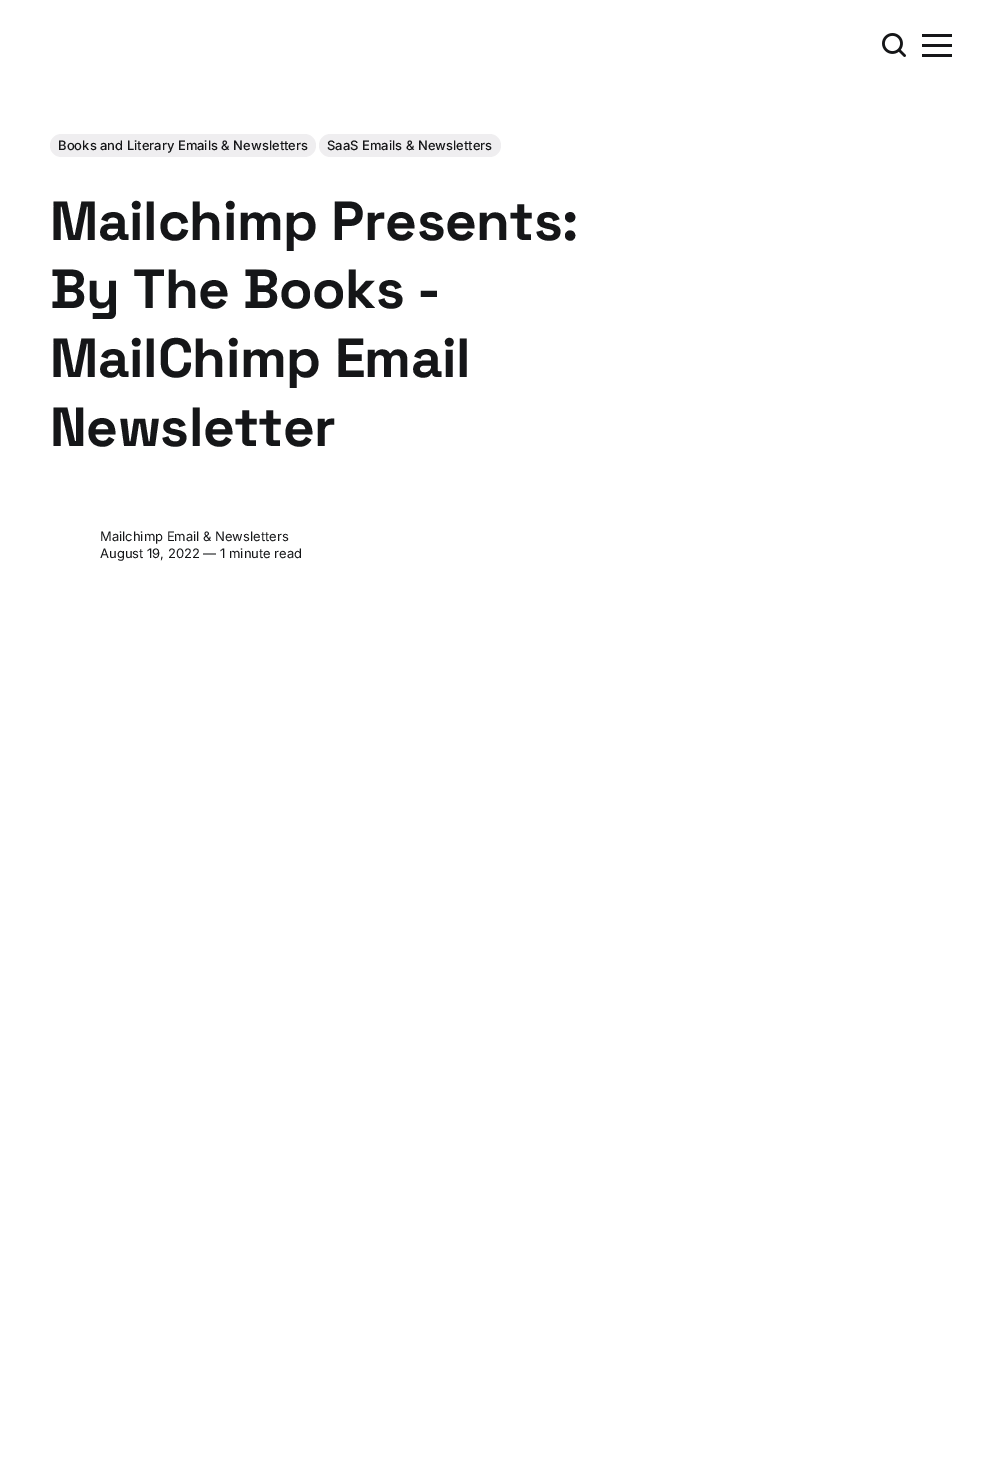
%!PS-Adobe-3.0
%%BoundingBox: 0 0 1002 1472
%%LanguageLevel: 3
%%Pages: 1
%%EndComments
%%BeginProlog
/m { moveto } bind def
/f { fill } bind def
/fn { [ exch dup neg 0 0 3 -1 roll 0 0 ] selectfont } def
/tx { moveto show } def
/bx { rectfill } def
/rr { 5 dict begin { /r /h /w /y /x } { exch def } forall
  x r add y moveto x w add y 2 copy h add r arct x w add y h add x 1 index r arct
  x y h add x y r arct x y 2 copy exch w add exch r arct closepath end } def
/im { 5 dict begin { /h /w /y /x /name } { exch def } forall
  gsave x y translate w h scale
  w h 8 [w 0 0 h 0 0] name (r) file false 3 colorimage grestore end } def
%%EndProlog
%%BeginSetup
<< /PageSize [1002 1472] >> setpagedevice
%%EndSetup
%%Page: 1 1
0 1472 translate 1 -1 scale
4 setmiterlimit
1 setgray
0 0 1002 1472 bx
(image0.raw) 882 33 24 24 im
0.082 0.086 0.094 setrgbcolor
922 34 30 3 bx
922 44 30 3 bx
922 54 30 3 bx
0.937 0.933 0.941 setrgbcolor
50 134 266 23 11.5 rr f
/Inter-Medium 13 fn
0.082 0.086 0.094 setrgbcolor
(Books and Literary Emails & Newsletters) 58 150 tx
0.937 0.933 0.941 setrgbcolor
319 134 182 23 11.5 rr f
0.082 0.086 0.094 setrgbcolor
(SaaS Emails & Newsletters) 327 150 tx
/SpaceGrotesk-Bold 55 fn
50 240 m -0.5 0 (Mailchimp Presents:) ashow
50 308 m -0.5 0 (By The Books -) ashow
50 377 m -0.5 0 (MailChimp Email) ashow
50 446 m -0.5 0 (Newsletter) ashow
/Inter-Regular 13 fn
(Mailchimp Email & Newsletters) 100 541 tx
(August 19, 2022 — 1 minute read) 100 558 tx
showpage
%%EOF
